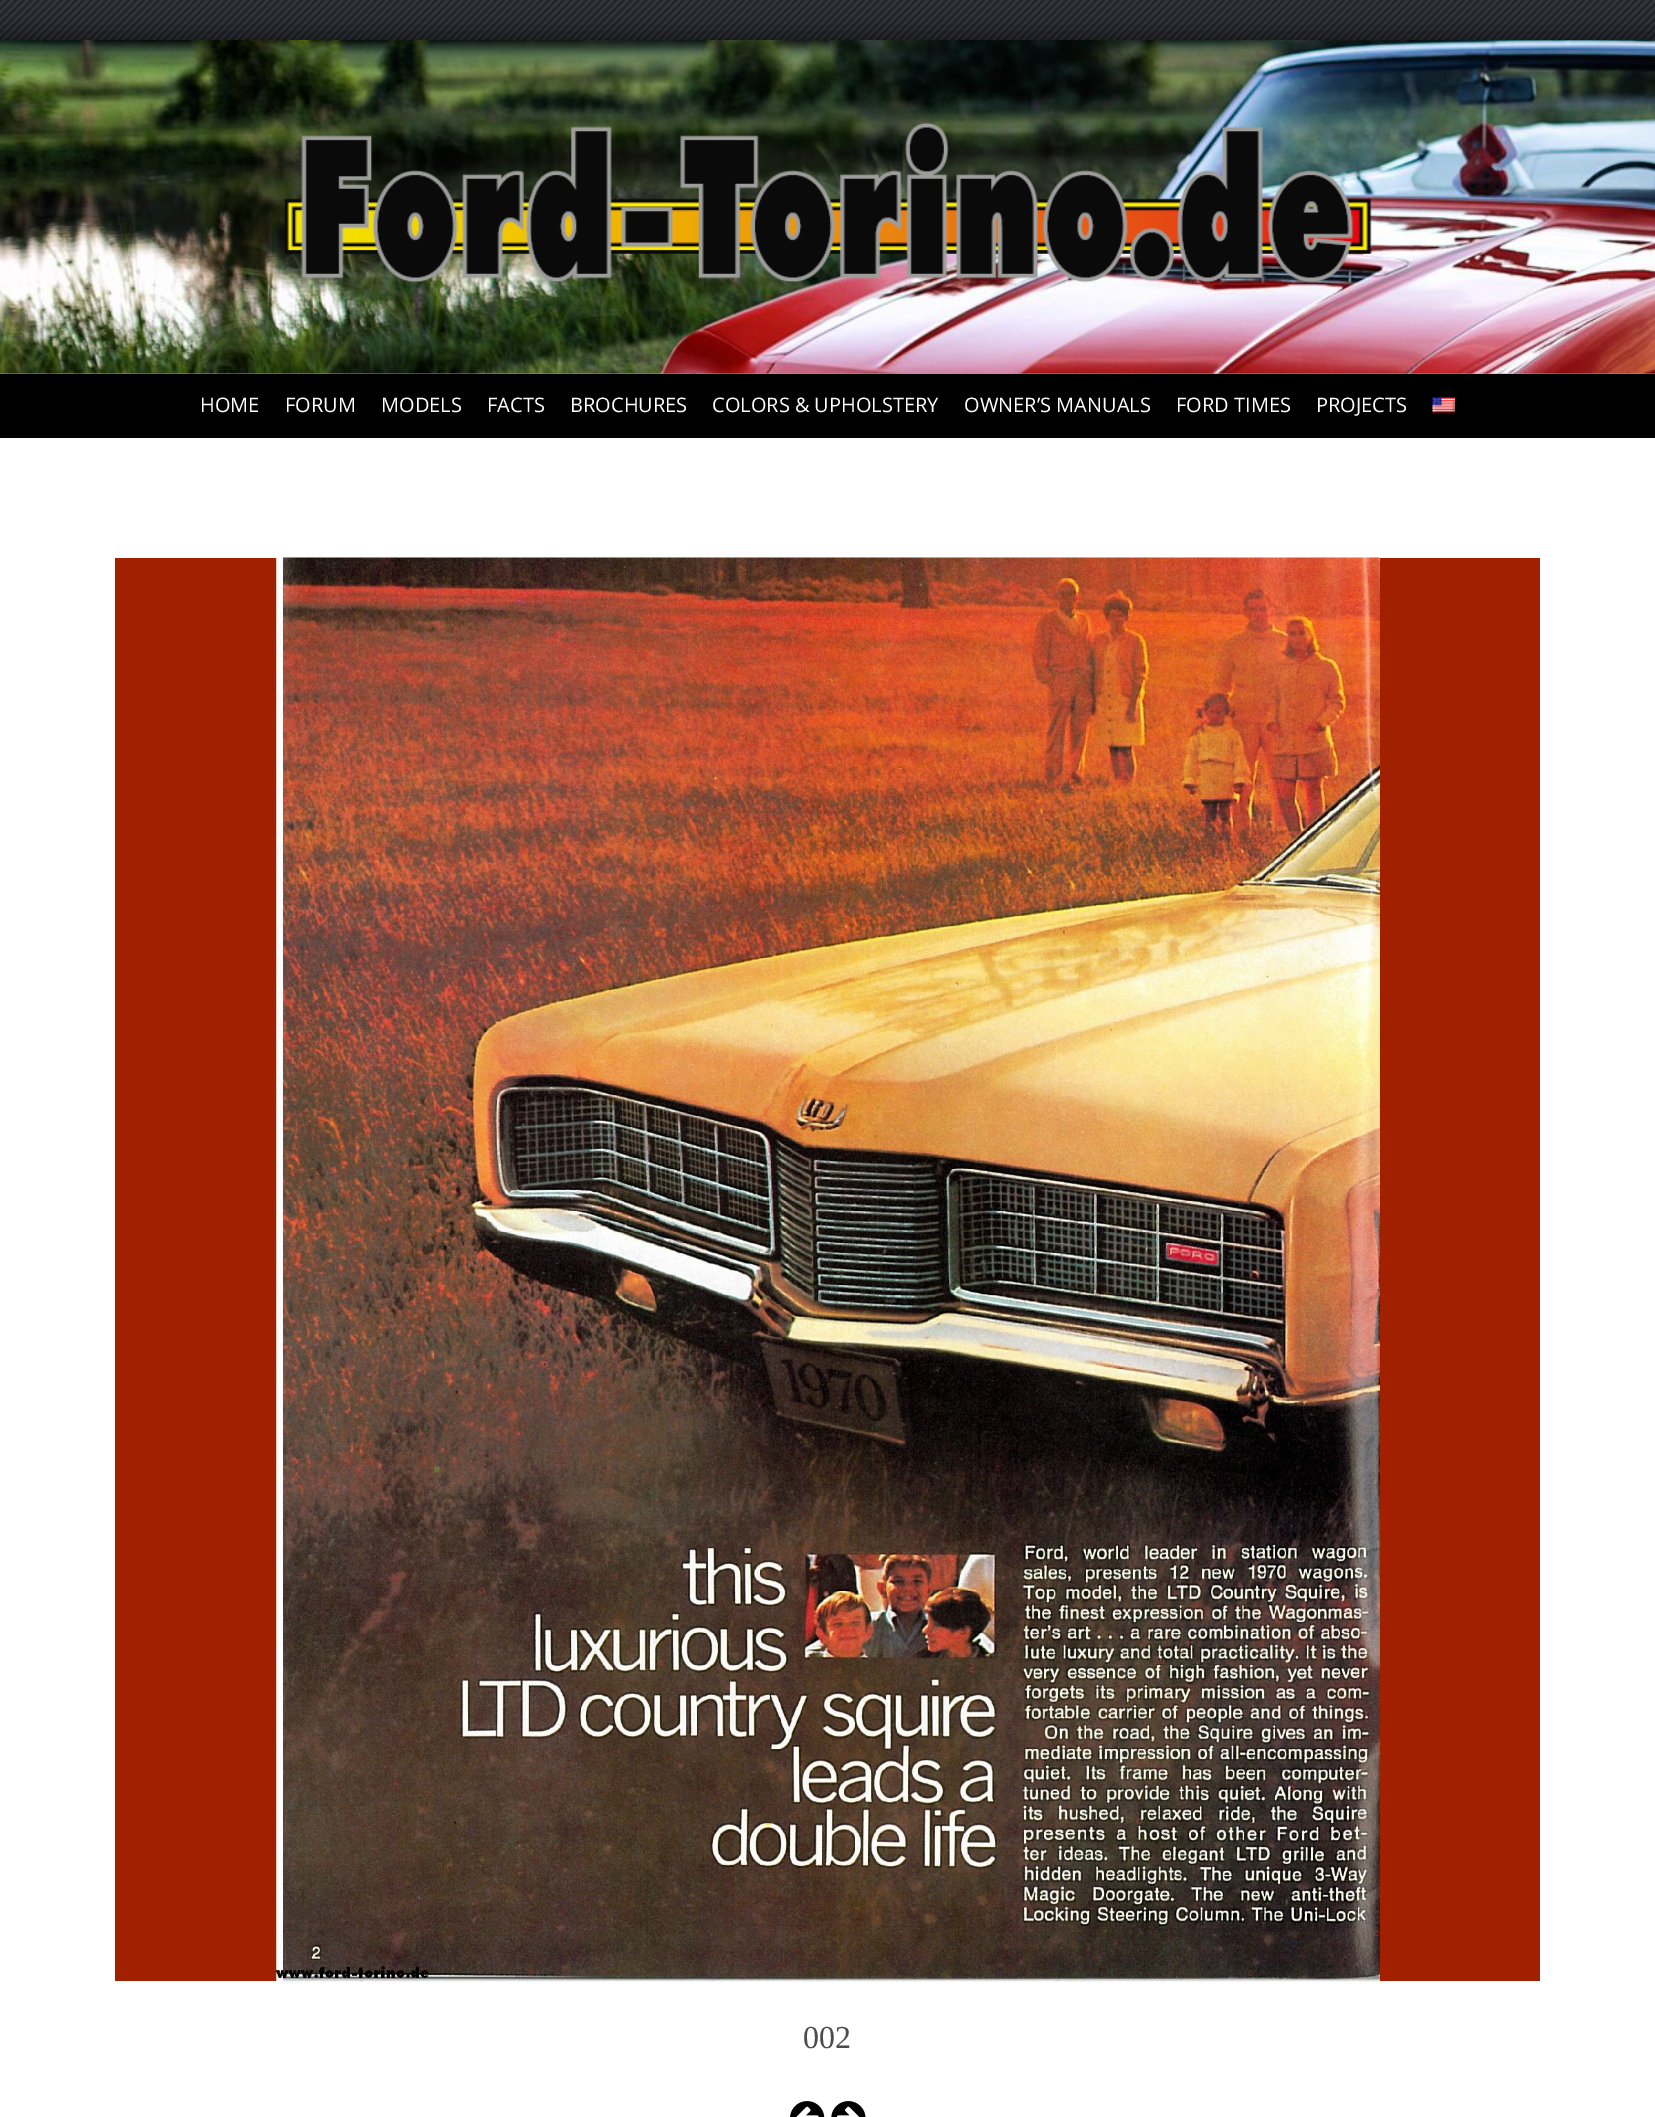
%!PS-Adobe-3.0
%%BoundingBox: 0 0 1655 2117
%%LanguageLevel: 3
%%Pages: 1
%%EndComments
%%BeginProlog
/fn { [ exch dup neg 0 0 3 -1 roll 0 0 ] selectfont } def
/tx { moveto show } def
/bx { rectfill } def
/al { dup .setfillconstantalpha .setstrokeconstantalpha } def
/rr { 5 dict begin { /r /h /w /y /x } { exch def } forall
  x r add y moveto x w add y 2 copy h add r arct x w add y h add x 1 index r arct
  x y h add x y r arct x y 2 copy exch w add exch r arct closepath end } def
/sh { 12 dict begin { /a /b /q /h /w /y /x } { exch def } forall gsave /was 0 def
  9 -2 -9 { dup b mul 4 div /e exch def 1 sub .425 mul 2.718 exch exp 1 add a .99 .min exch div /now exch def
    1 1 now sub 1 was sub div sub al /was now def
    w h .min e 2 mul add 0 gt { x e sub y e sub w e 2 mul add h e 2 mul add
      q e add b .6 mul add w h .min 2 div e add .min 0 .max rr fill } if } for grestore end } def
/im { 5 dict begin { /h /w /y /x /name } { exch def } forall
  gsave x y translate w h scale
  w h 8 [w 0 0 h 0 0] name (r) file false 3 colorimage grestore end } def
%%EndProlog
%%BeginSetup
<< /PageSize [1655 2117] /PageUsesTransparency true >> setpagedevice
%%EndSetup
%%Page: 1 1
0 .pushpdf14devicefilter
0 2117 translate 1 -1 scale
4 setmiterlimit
1 setgray
0 0 1655 2117 bx
(image0.raw) 0 0 1655 40 im
0 setgray
-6 34 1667 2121 0 12.5 0.5 sh
0.627 setgray
0 373 1655 1 bx
(image1.raw) 0 40 1655 334 im
(image2.raw) 284 122 1088 161 im
0 setgray
0 374 1655 64 bx
/OpenSans-Regular 20 fn
1 setgray
(HOME) 200 412 tx
(FORUM) 285 412 tx
(MODELS) 381 412 tx
(FACTS) 487 412 tx
(BROCHURES) 570 412 tx
(COLORS & UPHOLSTERY) 712 412 tx
(OWNER’S MANUALS) 964 412 tx
(FORD TIMES) 1176 412 tx
(PROJECTS) 1316 412 tx
(image3.raw) 1432 397 23 16 im
0 438 1655 1679 bx
0.627 0.125 0 setrgbcolor
115 558 1425 1423 bx
(image4.raw) 276 557 1104 1425 im
/LiberationSerif-Regular 32 fn
0.298 setgray
(002) 803 2048 tx
(image5.raw) 790 2101 35 16 im
(image6.raw) 831 2101 35 16 im
.poppdf14devicefilter showpage
%%EOF
